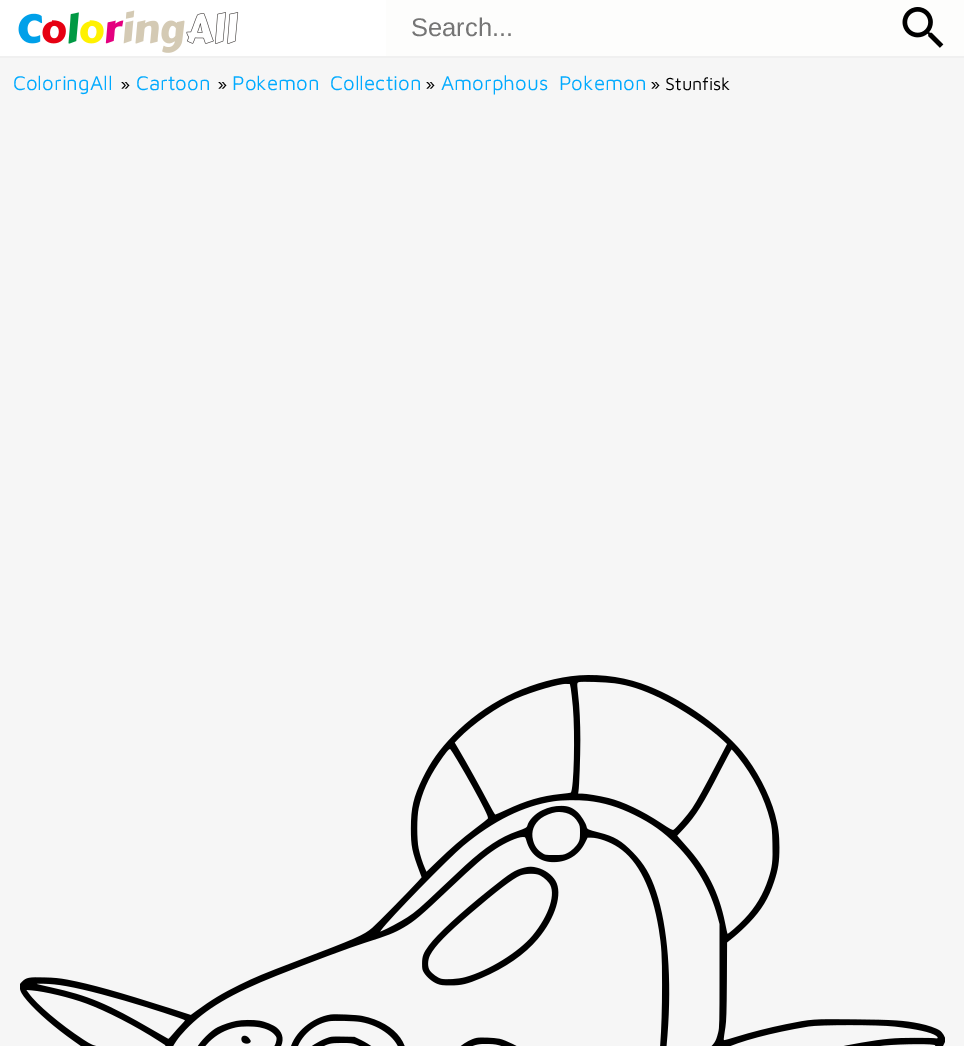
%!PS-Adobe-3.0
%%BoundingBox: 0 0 964 1046
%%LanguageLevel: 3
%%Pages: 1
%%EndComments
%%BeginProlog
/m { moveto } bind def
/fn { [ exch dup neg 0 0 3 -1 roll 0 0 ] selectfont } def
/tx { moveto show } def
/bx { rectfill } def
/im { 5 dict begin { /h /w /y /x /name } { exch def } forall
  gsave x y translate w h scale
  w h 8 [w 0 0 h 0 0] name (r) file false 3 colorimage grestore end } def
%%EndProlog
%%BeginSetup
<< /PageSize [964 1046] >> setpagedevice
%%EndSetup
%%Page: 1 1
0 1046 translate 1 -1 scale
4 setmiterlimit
0.965 setgray
0 0 964 1046 bx
1 setgray
0 0 386 56 bx
0.941 setgray
0 56 964 2 bx
(image0.raw) 18 10 221 43 im
0.992 0.992 0.988 setrgbcolor
386 0 578 56 bx
/LiberationSans-Regular 25.5 fn
0.459 setgray
(Search...) 411 36 tx
(image1.raw) 902 7 42 41 im
/MavenPro-Regular 20.5 fn
0 0.667 1 setrgbcolor
(ColoringAll) 13 90 tx
/MavenPro-Regular 18 fn
0 setgray
(») 120 90 tx
/MavenPro-Regular 20.5 fn
0 0.667 1 setrgbcolor
(Cartoon) 136 90 tx
/MavenPro-Regular 18 fn
0 setgray
(») 217 90 tx
/MavenPro-Regular 20.5 fn
0 0.667 1 setrgbcolor
232 90 m 5 0 32 (Pokemon Collection) widthshow
/MavenPro-Regular 18 fn
0 setgray
(») 425 90 tx
/MavenPro-Regular 20.5 fn
0 0.667 1 setrgbcolor
441 90 m 5 0 32 (Amorphous Pokemon) widthshow
/MavenPro-Regular 18 fn
0 setgray
(») 650 90 tx
(Stunfisk) 665 90 tx
(image2.raw) 20 675 925 371 im
showpage
%%EOF
